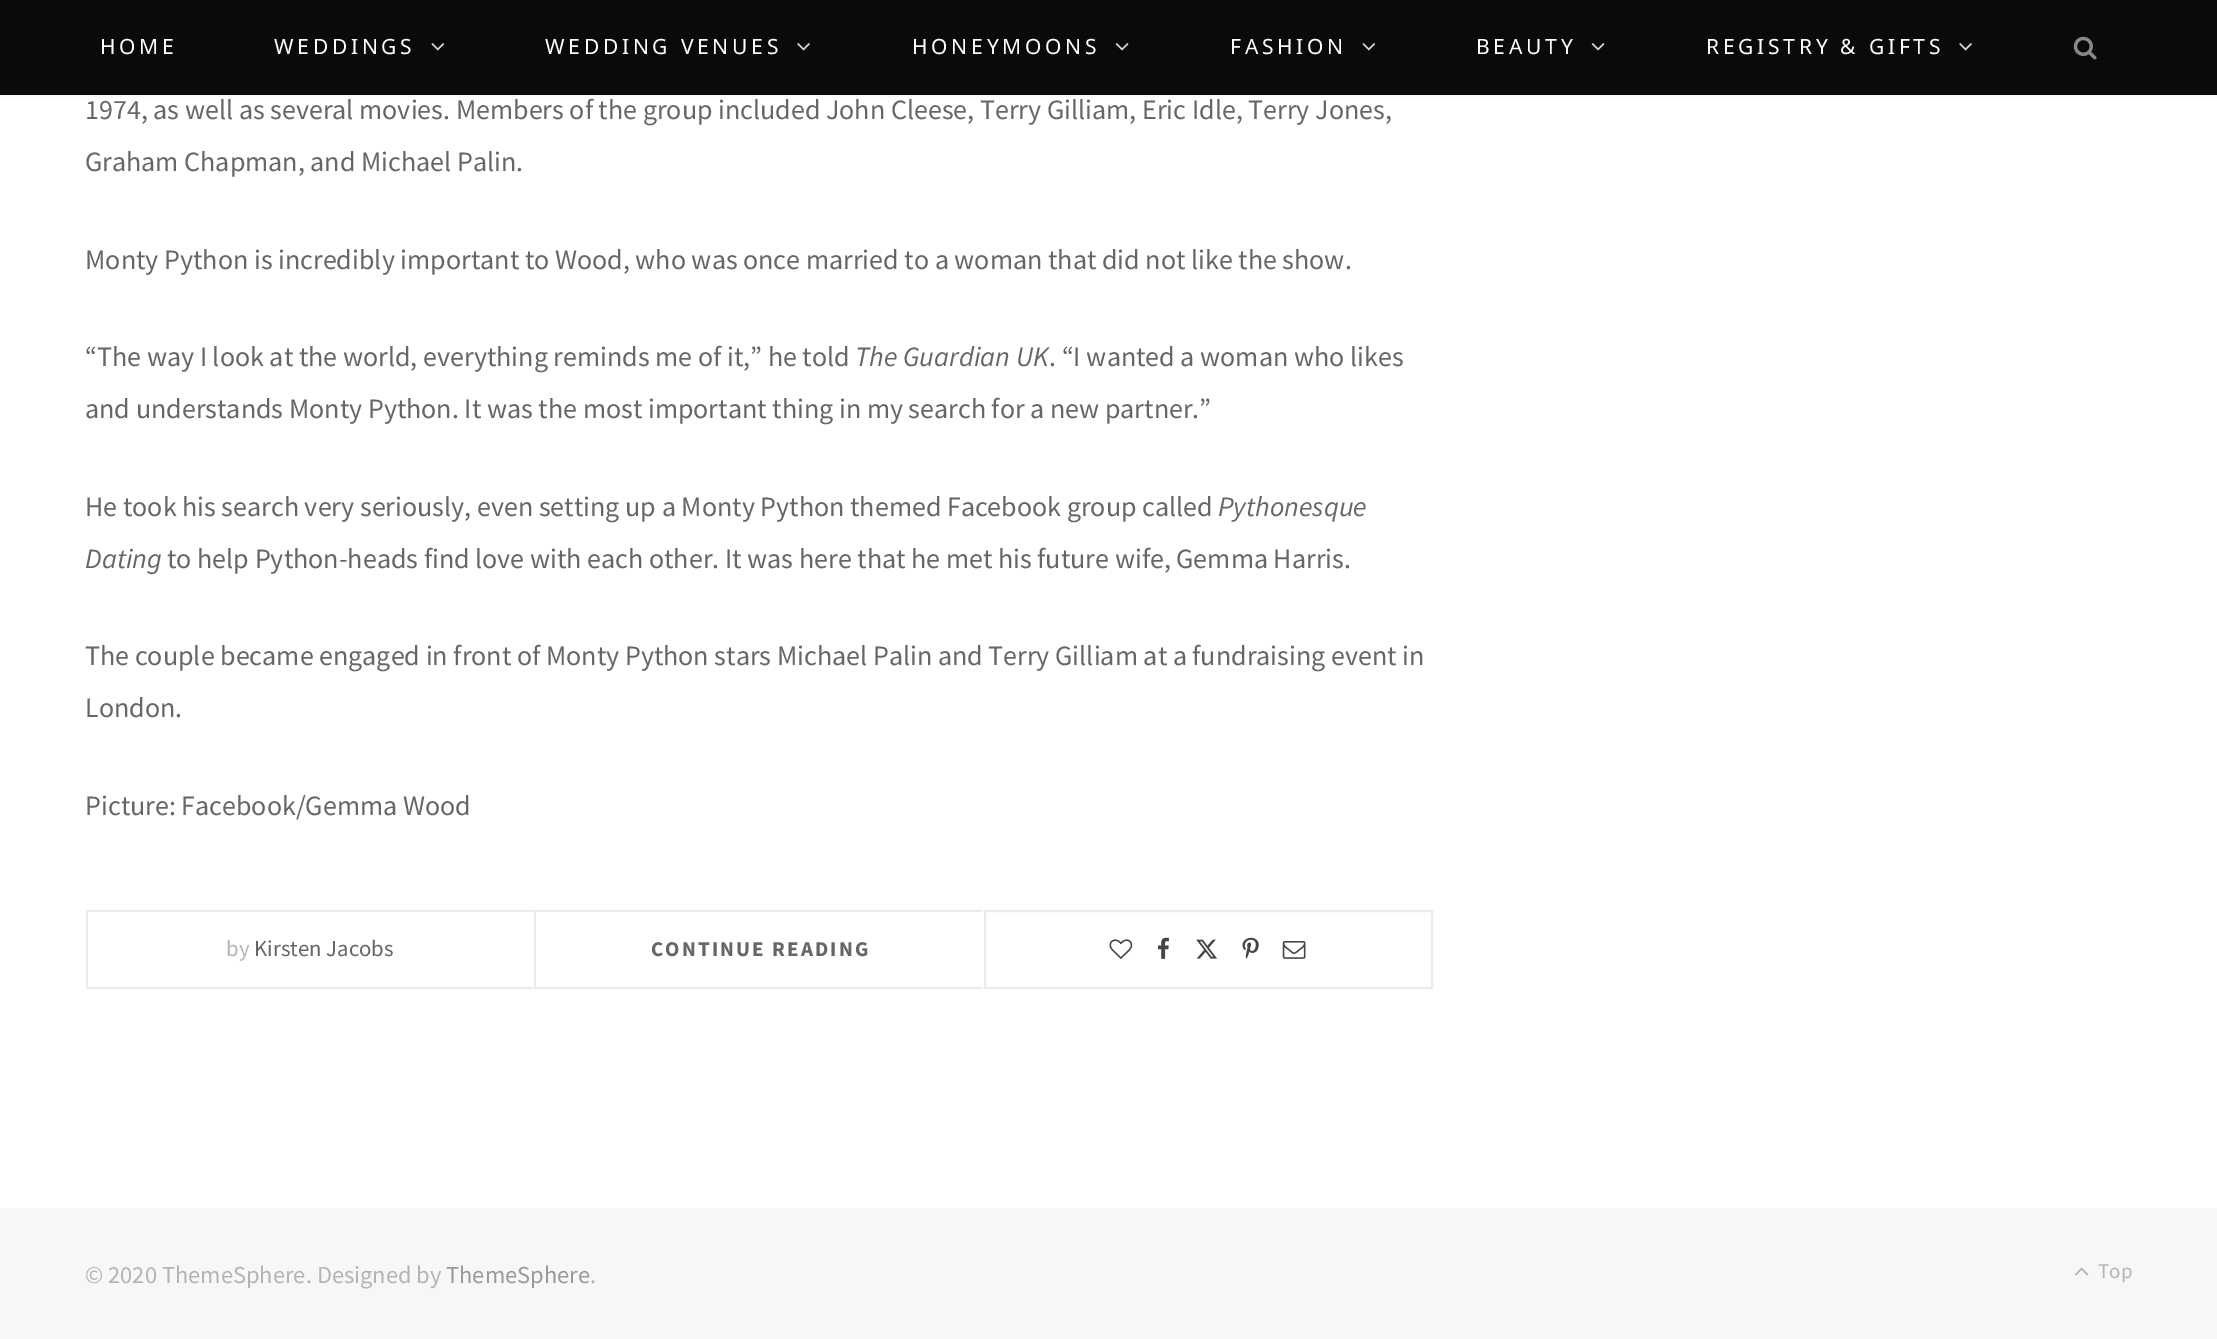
%!PS-Adobe-3.0
%%BoundingBox: 0 0 2217 1339
%%LanguageLevel: 3
%%Pages: 1
%%EndComments
%%BeginProlog
/m { moveto } bind def
/l { lineto } bind def
/h { closepath } bind def
/f { fill } bind def
/w { setlinewidth } bind def
/fn { [ exch dup neg 0 0 3 -1 roll 0 0 ] selectfont } def
/tx { moveto show } def
/bx { rectfill } def
/al { dup .setfillconstantalpha .setstrokeconstantalpha } def
/rr { 5 dict begin { /r /h /w /y /x } { exch def } forall
  x r add y moveto x w add y 2 copy h add r arct x w add y h add x 1 index r arct
  x y h add x y r arct x y 2 copy exch w add exch r arct closepath end } def
/sh { 12 dict begin { /a /b /q /h /w /y /x } { exch def } forall gsave /was 0 def
  9 -2 -9 { dup b mul 4 div /e exch def 1 sub .425 mul 2.718 exch exp 1 add a .99 .min exch div /now exch def
    1 1 now sub 1 was sub div sub al /was now def
    w h .min e 2 mul add 0 gt { x e sub y e sub w e 2 mul add h e 2 mul add
      q e add b .6 mul add w h .min 2 div e add .min 0 .max rr fill } if } for grestore end } def
/im { 5 dict begin { /h /w /y /x /name } { exch def } forall
  gsave x y translate w h scale
  w h 8 [w 0 0 h 0 0] name (r) file false 3 colorimage grestore end } def
%%EndProlog
%%BeginSetup
<< /PageSize [2217 1339] /PageUsesTransparency true >> setpagedevice
%%EndSetup
%%Page: 1 1
0 .pushpdf14devicefilter
0 1339 translate 1 -1 scale
4 setmiterlimit
1 setgray
0 0 2217 1339 bx
0 setgray
2 2 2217 94 0 2.5 0.05 sh
0.039 setgray
0 0 2217 95 bx
/NotoSans-Regular 21 fn
1 setgray
100 54 m 3.75 0 (HOME) ashow
274 54 m 3.75 0 (WEDDINGS) ashow
(image0.raw) 431 43 14 8 im
545 54 m 3.75 0 (WEDDING VENUES) ashow
(image1.raw) 797 43 13 8 im
912 54 m 3.75 0 (HONEYMOONS) ashow
(image2.raw) 1115 43 14 8 im
1230 54 m 3.75 0 (FASHION) ashow
(image0.raw) 1362 43 14 8 im
1476 54 m 3.75 0 (BEAUTY) ashow
(image2.raw) 1591 43 14 8 im
1706 54 m 3.75 0 (REGISTRY & GIFTS) ashow
(image1.raw) 1959 43 13 8 im
(image3.raw) 2073 36 24 24 im
/SourceSansPro-Regular 28 fn
0.4 setgray
(1974, as well as several movies. Members of the group included John Cleese, Terry Gilliam, Eric Idle, Terry Jones,) 85 119 tx
(Graham Chapman, and Michael Palin.) 85 171 tx
(Monty Python is incredibly important to Wood, who was once married to a woman that did not like the show.) 85 269 tx
(“The way I look at the world, everything reminds me of it,” he told) 85 366 tx
/SourceSansPro-Italic 28 fn
(The Guardian UK) 855 366 tx
/SourceSansPro-Regular 28 fn
(. “I wanted a woman who likes) 1049 366 tx
(and understands Monty Python. It was the most important thing in my search for a new partner.”) 85 418 tx
(He took his search very seriously, even setting up a Monty Python themed Facebook group called) 85 516 tx
/SourceSansPro-Italic 28 fn
(Pythonesque) 1218 516 tx
(Dating) 85 568 tx
/SourceSansPro-Regular 28 fn
(to help Python-heads find love with each other. It was here that he met his future wife, Gemma Harris.) 167 568 tx
(The couple became engaged in front of Monty Python stars Michael Palin and Terry Gilliam at a fundraising event in) 85 665 tx
(London.) 85 717 tx
(Picture: Facebook/Gemma Wood) 85 815 tx
0.922 setgray
86 910 m 534 910 l 532 912 l 88 912 l h f
534 989 m 86 989 l 88 987 l 532 987 l h f
86 910 2 79 bx
/SourceSansPro-Regular 22.75 fn
0.706 setgray
(by) 226 956 tx
0.4 setgray
(Kirsten Jacobs) 254 956 tx
0.922 setgray
534 910 m 984 910 l 982 912 l 536 912 l h f
984 989 m 534 989 l 536 987 l 982 987 l h f
534 910 2 79 bx
/SourceSansPro-Bold 21 fn
0.4 setgray
651 956 m 2.1 0 (CONTINUE READING) ashow
0.922 setgray
2 w
985 911 447 77 rectstroke
(image4.raw) 1109 939 24 20 im
(image5.raw) 1157 937 12 22 im
(image6.raw) 1196 939 21 20 im
(image7.raw) 1242 937 17 22 im
(image8.raw) 1282 941 24 18 im
0.969 setgray
0 1208 2217 131 bx
/SourceSansPro-Regular 24.5 fn
0.706 setgray
(© 2020 ThemeSphere. Designed by) 85 1283 tx
0.6 setgray
(ThemeSphere) 446 1283 tx
0.706 setgray
(.) 590 1283 tx
(image9.raw) 2074 1267 15 9 im
/SourceSansPro-Regular 21 fn
(Top) 2098 1278 tx
.poppdf14devicefilter showpage
%%EOF
